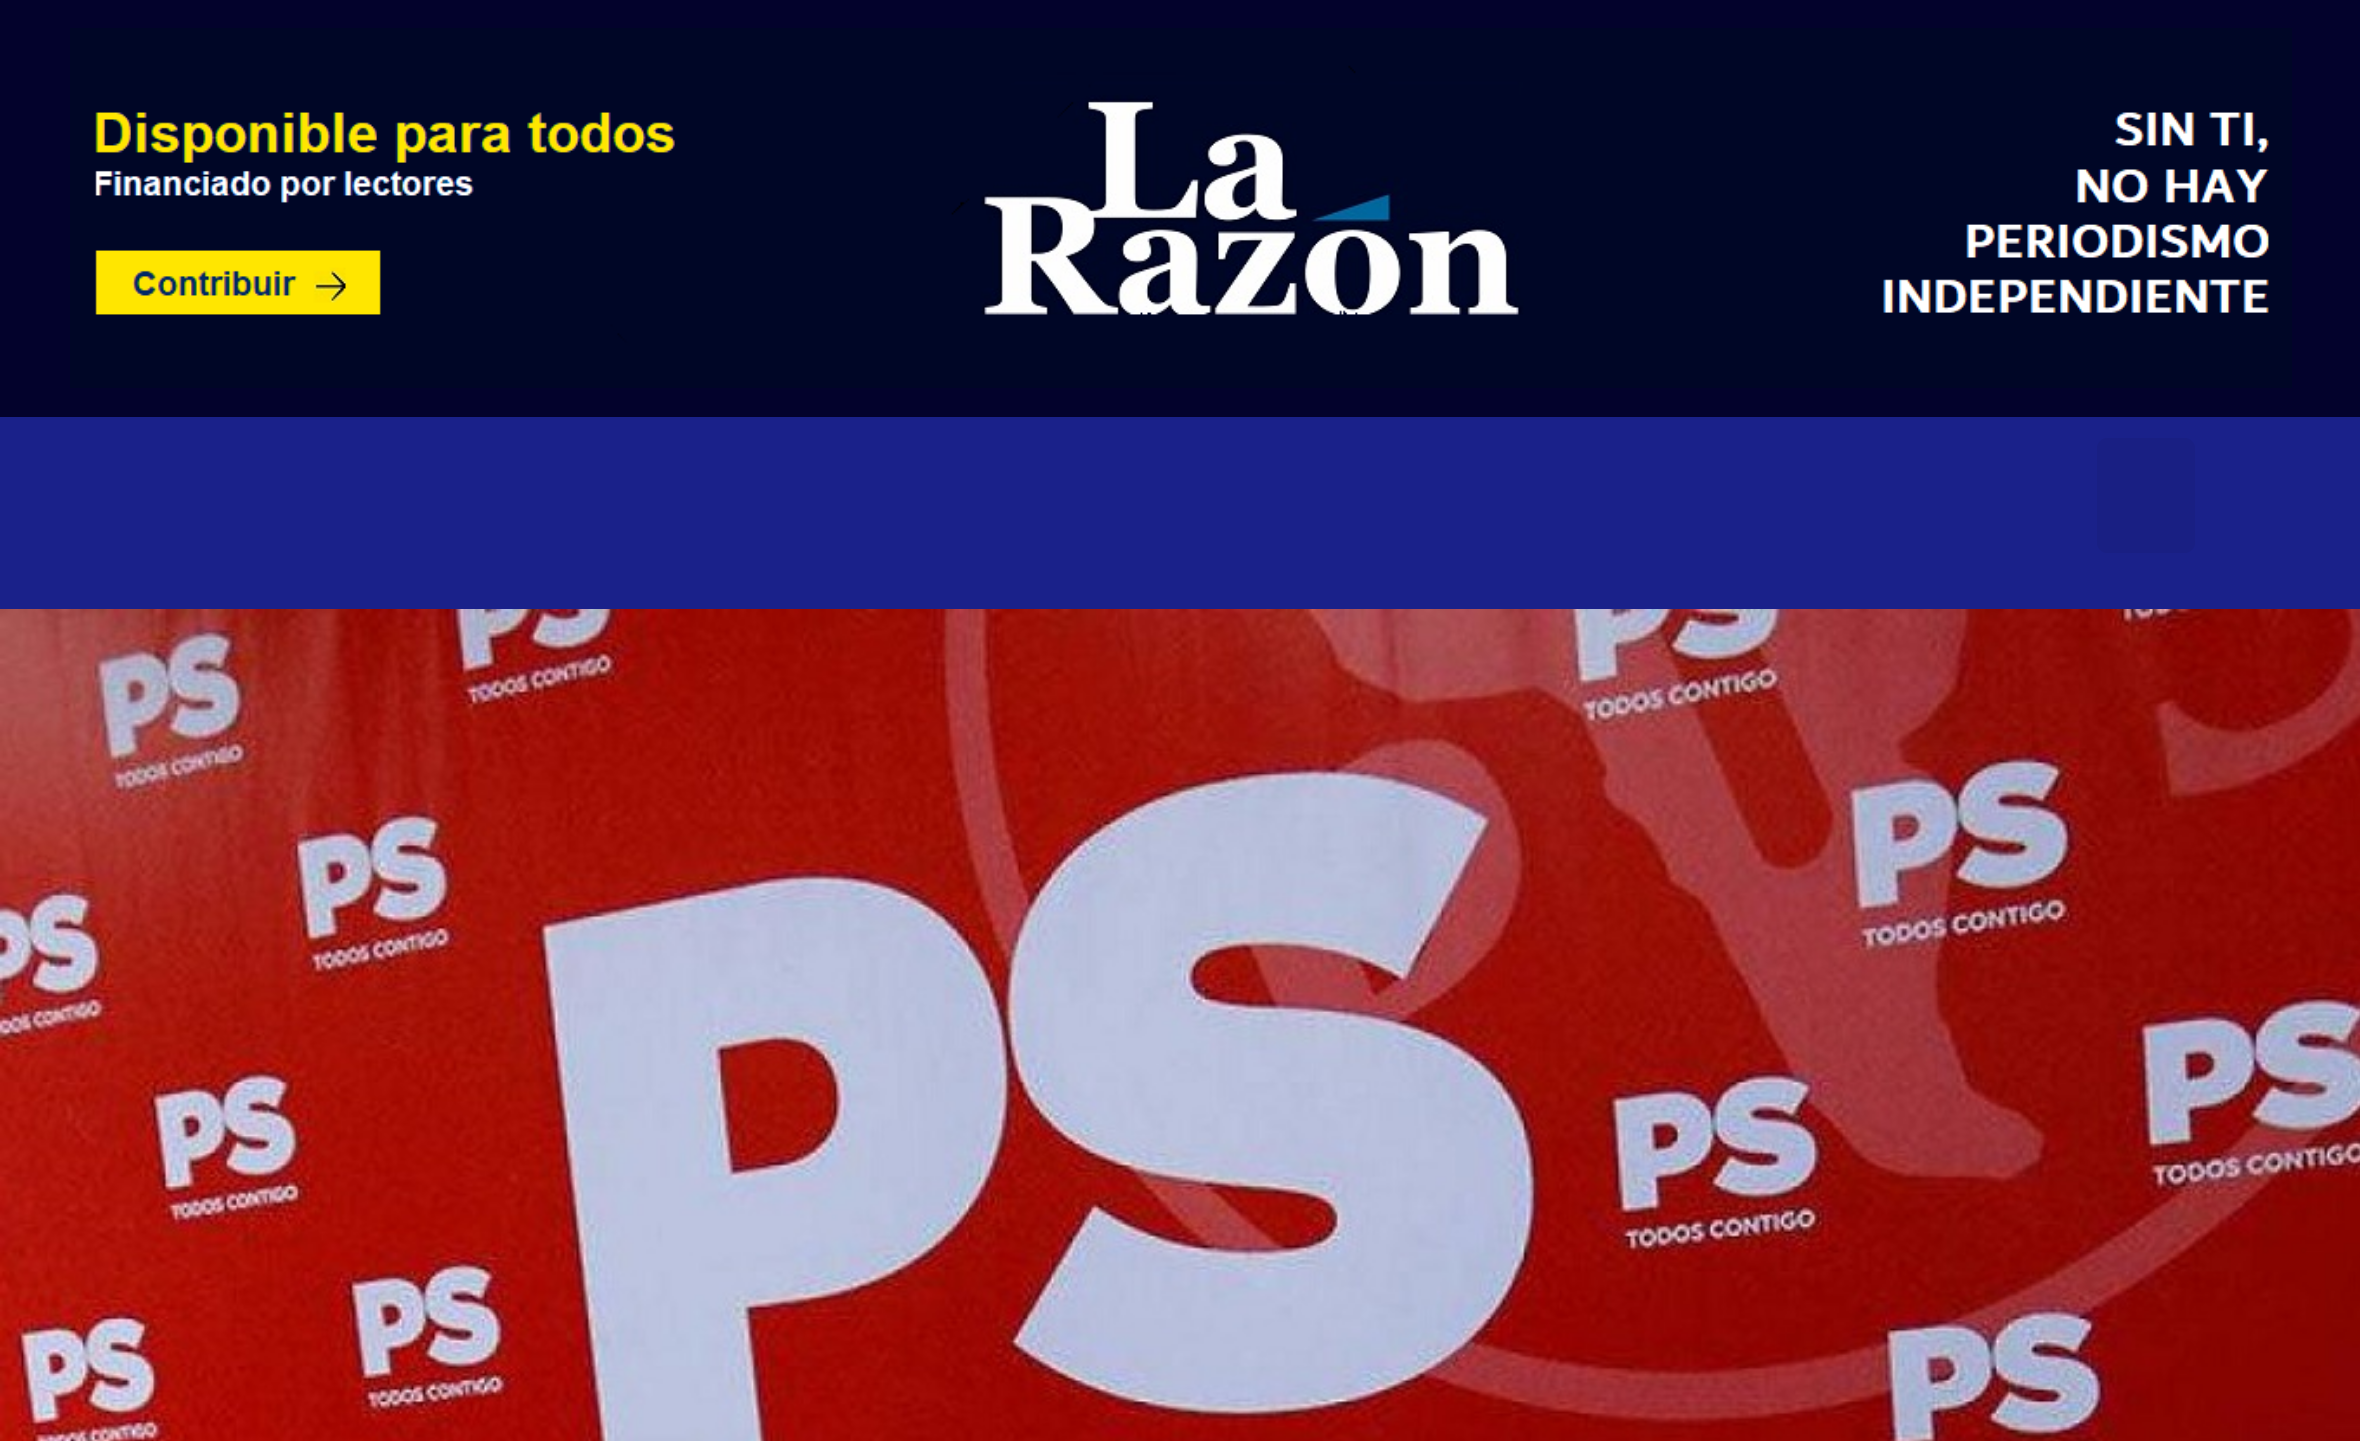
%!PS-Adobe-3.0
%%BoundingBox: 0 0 2360 1441
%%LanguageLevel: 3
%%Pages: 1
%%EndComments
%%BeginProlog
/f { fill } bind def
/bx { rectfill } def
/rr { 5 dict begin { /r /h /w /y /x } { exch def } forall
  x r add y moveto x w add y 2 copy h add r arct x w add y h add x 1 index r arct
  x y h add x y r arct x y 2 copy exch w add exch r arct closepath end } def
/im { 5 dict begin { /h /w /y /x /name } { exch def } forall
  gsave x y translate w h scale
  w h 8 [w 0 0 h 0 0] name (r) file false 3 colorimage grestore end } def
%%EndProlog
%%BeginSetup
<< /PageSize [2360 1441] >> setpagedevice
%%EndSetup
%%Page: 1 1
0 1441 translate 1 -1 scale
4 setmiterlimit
0.012 0.008 0.173 setrgbcolor
0 0 2360 1441 bx
(image0.raw) 70 28 2222 360 im
0.102 0.129 0.541 setrgbcolor
0 417 2360 192 bx
0.098 0.122 0.514 setrgbcolor
2097 438 98 115 11 rr f
(image1.raw) 0 609 2360 832 im
showpage
%%EOF
